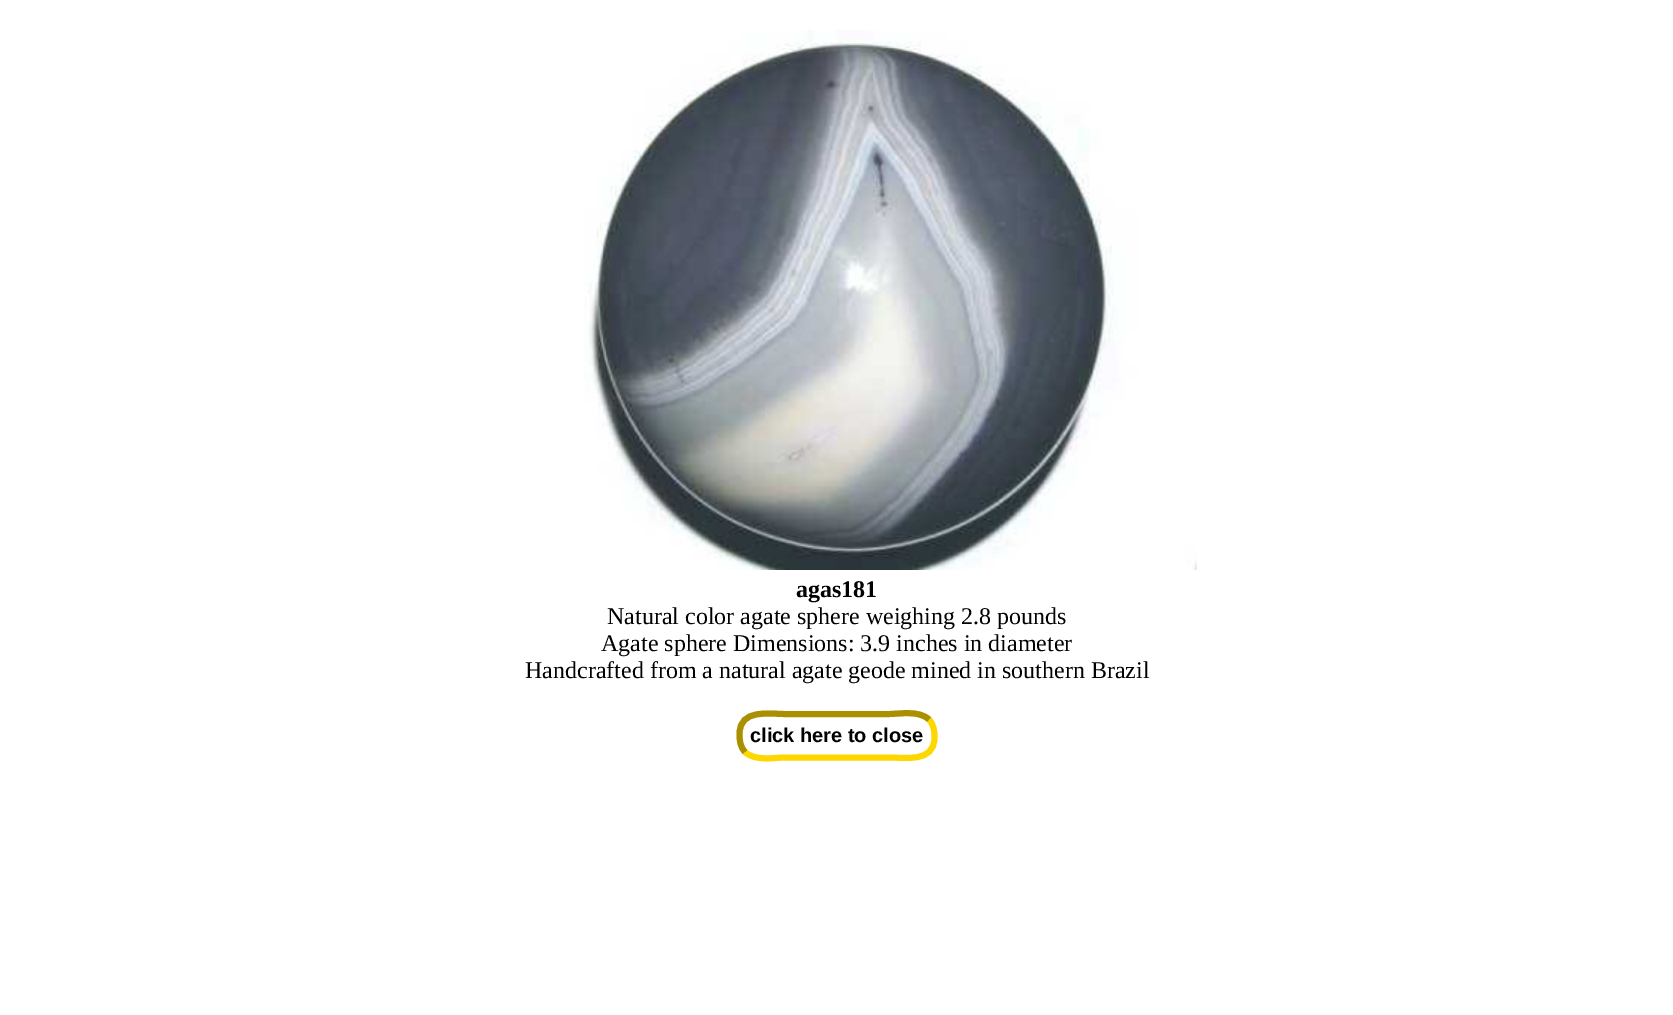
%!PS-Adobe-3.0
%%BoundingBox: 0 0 1673 1015
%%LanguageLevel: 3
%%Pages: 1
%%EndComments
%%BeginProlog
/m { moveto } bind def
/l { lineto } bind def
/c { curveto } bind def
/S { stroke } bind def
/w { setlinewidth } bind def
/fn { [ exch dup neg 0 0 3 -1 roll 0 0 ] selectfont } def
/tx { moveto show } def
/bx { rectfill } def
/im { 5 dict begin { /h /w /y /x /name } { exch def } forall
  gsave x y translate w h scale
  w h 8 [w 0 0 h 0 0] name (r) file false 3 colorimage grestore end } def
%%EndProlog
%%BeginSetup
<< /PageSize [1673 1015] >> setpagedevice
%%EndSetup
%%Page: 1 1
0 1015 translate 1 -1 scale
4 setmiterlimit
1 setgray
0 0 1673 1015 bx
(image0.raw) 584 30 613 540 im
/LiberationSerif-Bold 24 fn
0 setgray
(agas181) 796 597 tx
/LiberationSerif-Regular 24 fn
(Natural color agate sphere weighing 2.8 pounds) 607 624 tx
(Agate sphere Dimensions: 3.9 inches in diameter) 601 651 tx
(Handcrafted from a natural agate geode mined in southern Brazil) 525 678 tx
1 0.843 0 setrgbcolor
6 w
929 719.5 m 934 725 934.5 731 934.5 738 c 934 763 905 757.5 889 757.5 c 785 757.5 l 774.5 757.5 755 761.5 745 752 c S
0.667 0.561 0 setrgbcolor
745 752 m 740 746.5 739.5 740.5 739.5 733.5 c 740 708.5 769 714 785 714 c 889 714 l 899.5 714 919 710 929 719.5 c S
/LiberationSans-Bold 20 fn
0 setgray
(click here to close) 750 742 tx
showpage
%%EOF
